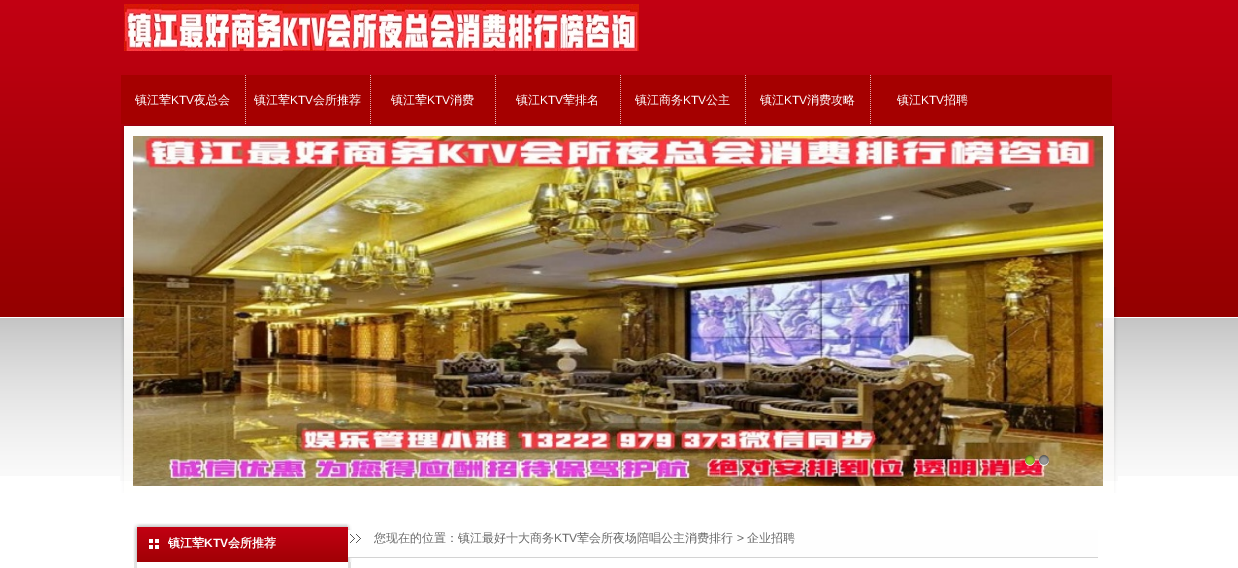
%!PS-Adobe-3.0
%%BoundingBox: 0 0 1238 568
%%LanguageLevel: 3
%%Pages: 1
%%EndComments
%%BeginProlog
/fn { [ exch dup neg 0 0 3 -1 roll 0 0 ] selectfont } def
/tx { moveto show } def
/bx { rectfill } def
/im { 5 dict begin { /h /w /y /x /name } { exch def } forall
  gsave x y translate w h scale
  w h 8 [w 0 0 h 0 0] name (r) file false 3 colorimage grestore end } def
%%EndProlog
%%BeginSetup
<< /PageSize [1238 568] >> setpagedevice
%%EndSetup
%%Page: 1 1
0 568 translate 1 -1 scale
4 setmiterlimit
1 setgray
0 0 1238 568 bx
(image0.raw) 0 0 1238 476 im
(image1.raw) 120 123 998 370 im
(image2.raw) 124 4 515 47 im
0.647 0 0 setrgbcolor
121 75 991 49 bx
/WenQuanYiZenHei-Medium 12 fn
1 setgray
(镇江荤) 135 104 tx
/LiberationSans-Regular 12 fn
(KTV) 171 104 tx
/WenQuanYiZenHei-Medium 12 fn
(夜总会) 194 104 tx
(image3.raw) 245 75 1 49 im
(镇江荤) 254 104 tx
/LiberationSans-Regular 12 fn
(KTV) 290 104 tx
/WenQuanYiZenHei-Medium 12 fn
(会所推荐) 313 104 tx
(image3.raw) 370 75 1 49 im
(镇江荤) 391 104 tx
/LiberationSans-Regular 12 fn
(KTV) 427 104 tx
/WenQuanYiZenHei-Medium 12 fn
(消费) 450 104 tx
(image3.raw) 495 75 1 49 im
(镇江) 516 104 tx
/LiberationSans-Regular 12 fn
(KTV) 540 104 tx
/WenQuanYiZenHei-Medium 12 fn
(荤排名) 563 104 tx
(image3.raw) 620 75 1 49 im
(镇江商务) 635 104 tx
/LiberationSans-Regular 12 fn
(KTV) 683 104 tx
/WenQuanYiZenHei-Medium 12 fn
(公主) 706 104 tx
(image3.raw) 745 75 1 49 im
(镇江) 760 104 tx
/LiberationSans-Regular 12 fn
(KTV) 784 104 tx
/WenQuanYiZenHei-Medium 12 fn
(消费攻略) 807 104 tx
(image3.raw) 870 75 1 49 im
(镇江) 897 104 tx
/LiberationSans-Regular 12 fn
(KTV) 921 104 tx
/WenQuanYiZenHei-Medium 12 fn
(招聘) 944 104 tx
(image4.raw) 133 136 970 350 im
(image5.raw) 1025 455 10 11 im
(image6.raw) 1039 455 10 11 im
0.89 setgray
134 562 3 6 bx
0.871 setgray
348 562 3 6 bx
(image7.raw) 133 523 214 39 im
/WenQuanYiZenHei-Bold 12 fn
1 setgray
(镇江荤) 168 547 tx
/LiberationSans-Bold 12 fn
(KTV) 204 547 tx
/WenQuanYiZenHei-Bold 12 fn
(会所推荐) 228 547 tx
(image8.raw) 347 523 5 39 im
(image9.raw) 348 530 750 28 im
/WenQuanYiZenHei-Medium 12 fn
0.412 setgray
(您现在的位置：镇江最好十大商务) 374 542 tx
/LiberationSans-Regular 12 fn
(KTV) 554 542 tx
/WenQuanYiZenHei-Medium 12 fn
(荤会所夜场陪唱公主消费排行) 577 542 tx
/LiberationSans-Regular 12 fn
(>) 737 542 tx
/WenQuanYiZenHei-Medium 12 fn
(企业招聘) 747 542 tx
showpage
%%EOF
